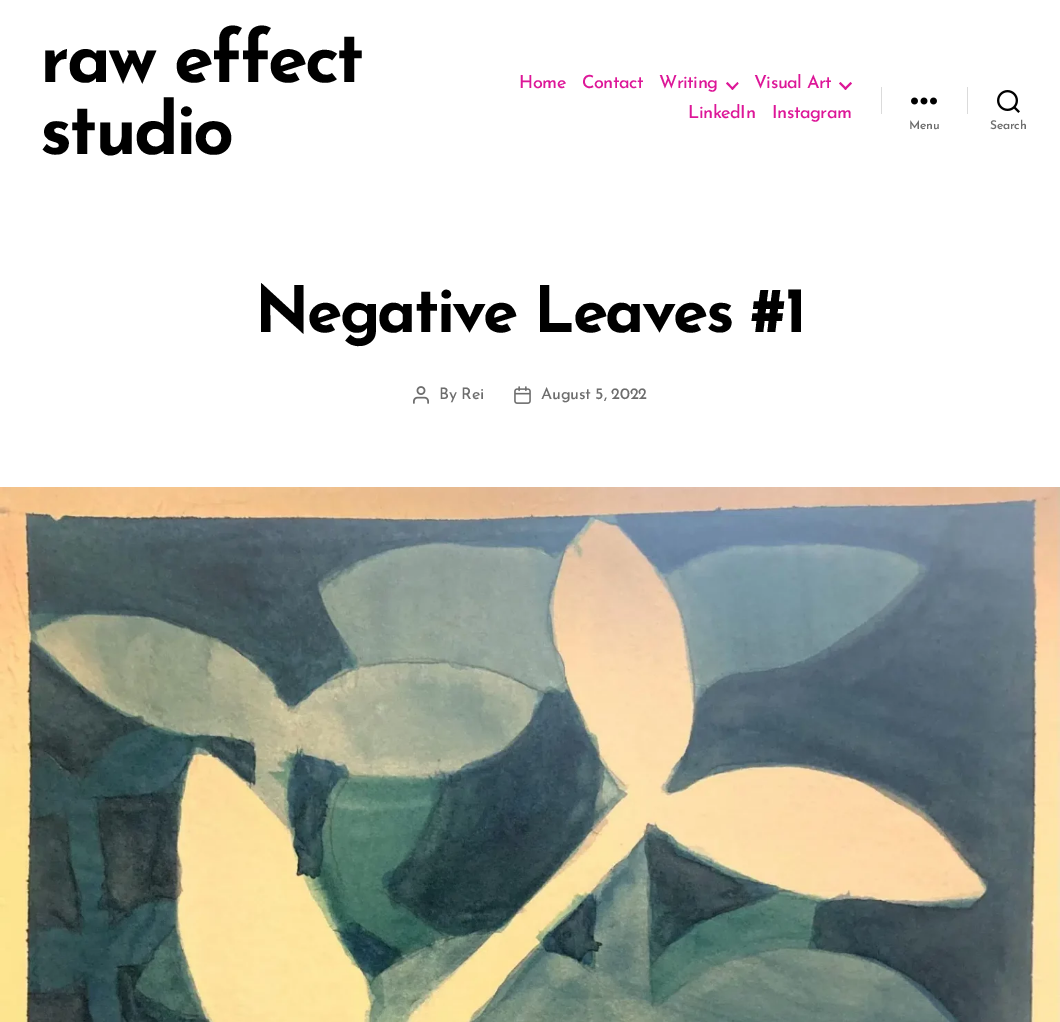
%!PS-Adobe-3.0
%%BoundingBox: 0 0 1060 1022
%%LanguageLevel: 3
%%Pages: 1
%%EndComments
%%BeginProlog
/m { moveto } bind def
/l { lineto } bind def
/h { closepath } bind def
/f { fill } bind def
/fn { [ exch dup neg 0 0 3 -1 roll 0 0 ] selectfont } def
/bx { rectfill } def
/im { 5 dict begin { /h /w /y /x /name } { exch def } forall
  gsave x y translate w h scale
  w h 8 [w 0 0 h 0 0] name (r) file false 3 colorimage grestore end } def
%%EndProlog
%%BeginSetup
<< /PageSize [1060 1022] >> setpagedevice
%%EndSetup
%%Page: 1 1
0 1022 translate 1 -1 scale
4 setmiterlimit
1 setgray
0 0 1060 1022 bx
/JosefinSans-Bold 72 fn
0 setgray
40 82 m -3 0 (raw effect) ashow
40 154 m -3 0 (studio) ashow
/JosefinSans-Medium 18 fn
0.867 0.09 0.596 setrgbcolor
519 88 m -0.5 0 (Home) ashow
582 88 m -0.5 0 (Contact) ashow
659 88 m -0.5 0 (Writing) ashow
726 83.5 m 727.5 82 l 733.5 88.5 l 732.5 90 l h f
731 88.5 m 737.5 82 l 738.5 83.5 l 732.5 90 l h f
754 88 m -0.5 0 (Visual Art) ashow
839 83.5 m 840.5 82 l 847 88.5 l 845.5 90 l h f
844 88.5 m 850.5 82 l 852 83.5 l 845.5 90 l h f
688 118 m -0.5 0 (LinkedIn) ashow
772 118 m -0.5 0 (Instagram) ashow
0.859 setgray
881 87 1 27 bx
(image0.raw) 911 97 26 8 im
/JosefinSans-SemiBold 12 fn
0.427 setgray
909 129 m -0.25 0 (Menu) ashow
0.859 setgray
967 87 1 27 bx
(image1.raw) 997 90 23 23 im
0.427 setgray
990 129 m -0.25 0 (Search) ashow
/JosefinSans-Bold 64 fn
0 setgray
255 332 m -2.7 0 (Negative Leaves #1) ashow
(image2.raw) 413 386 16 18 im
/JosefinSans-Medium 16 fn
0.427 setgray
439 399 m -0.25 0 (By Rei) ashow
(image3.raw) 514 386 17 18 im
541 399 m -0.25 0 (August 5, 2022) ashow
(image4.raw) 0 487 1060 535 im
showpage
%%EOF
